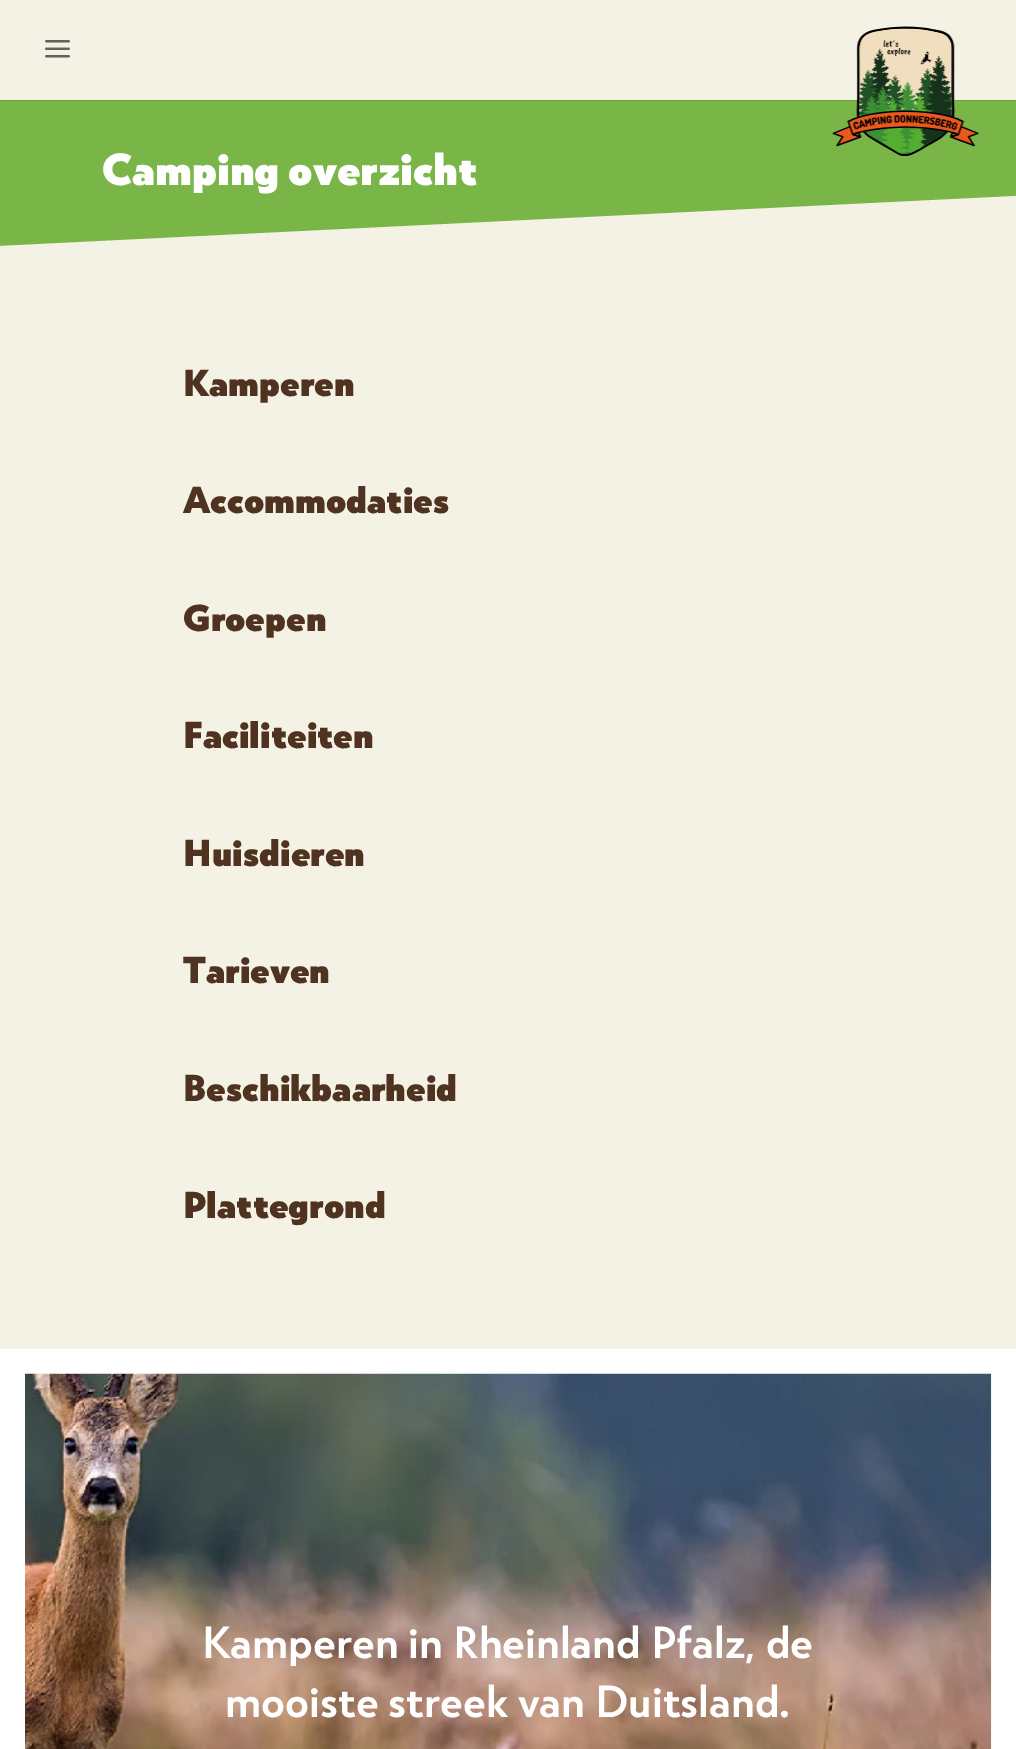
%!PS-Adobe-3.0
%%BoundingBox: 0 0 1016 1749
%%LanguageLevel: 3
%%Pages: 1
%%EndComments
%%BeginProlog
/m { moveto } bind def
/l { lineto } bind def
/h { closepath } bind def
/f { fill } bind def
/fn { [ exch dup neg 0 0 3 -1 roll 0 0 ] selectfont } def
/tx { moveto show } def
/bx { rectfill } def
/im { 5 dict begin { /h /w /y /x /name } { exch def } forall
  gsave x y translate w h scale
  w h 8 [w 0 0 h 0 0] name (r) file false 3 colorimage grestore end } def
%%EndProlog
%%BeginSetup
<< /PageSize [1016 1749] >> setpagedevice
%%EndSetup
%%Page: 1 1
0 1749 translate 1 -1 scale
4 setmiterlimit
1 setgray
0 0 1016 1749 bx
0.427 0.643 0.251 setrgbcolor
0 100 1016 1 bx
0.957 0.949 0.898 setrgbcolor
0 0 1016 100 bx
(image0.raw) 45 40 25 18 im
0.475 0.714 0.278 setrgbcolor
0 101 1016 145 bx
(image1.raw) 832 26 148 130 im
/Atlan-Black 45 fn
1 setgray
(Camping overzicht) 102 185 tx
0.957 0.949 0.898 setrgbcolor
1016 196 m 1016 246 l 0 246 l h f
0 246 1016 1103 bx
/Atlan-Black 37.5 fn
0.31 0.196 0.125 setrgbcolor
(Kamperen) 183 396 tx
(Accommodaties) 183 513 tx
(Groepen) 183 631 tx
(Faciliteiten) 183 748 tx
(Huisdieren) 183 866 tx
(Tarieven) 183 983 tx
(Beschikbaarheid) 183 1101 tx
(Plattegrond) 183 1218 tx
(image2.raw) 25 1373 967 376 im
/Atlan-SemiBold 45 fn
1 setgray
(Kamperen in Rheinland Pfalz, de) 202 1658 tx
(mooiste streek van Duitsland.) 225 1717 tx
showpage
%%EOF
